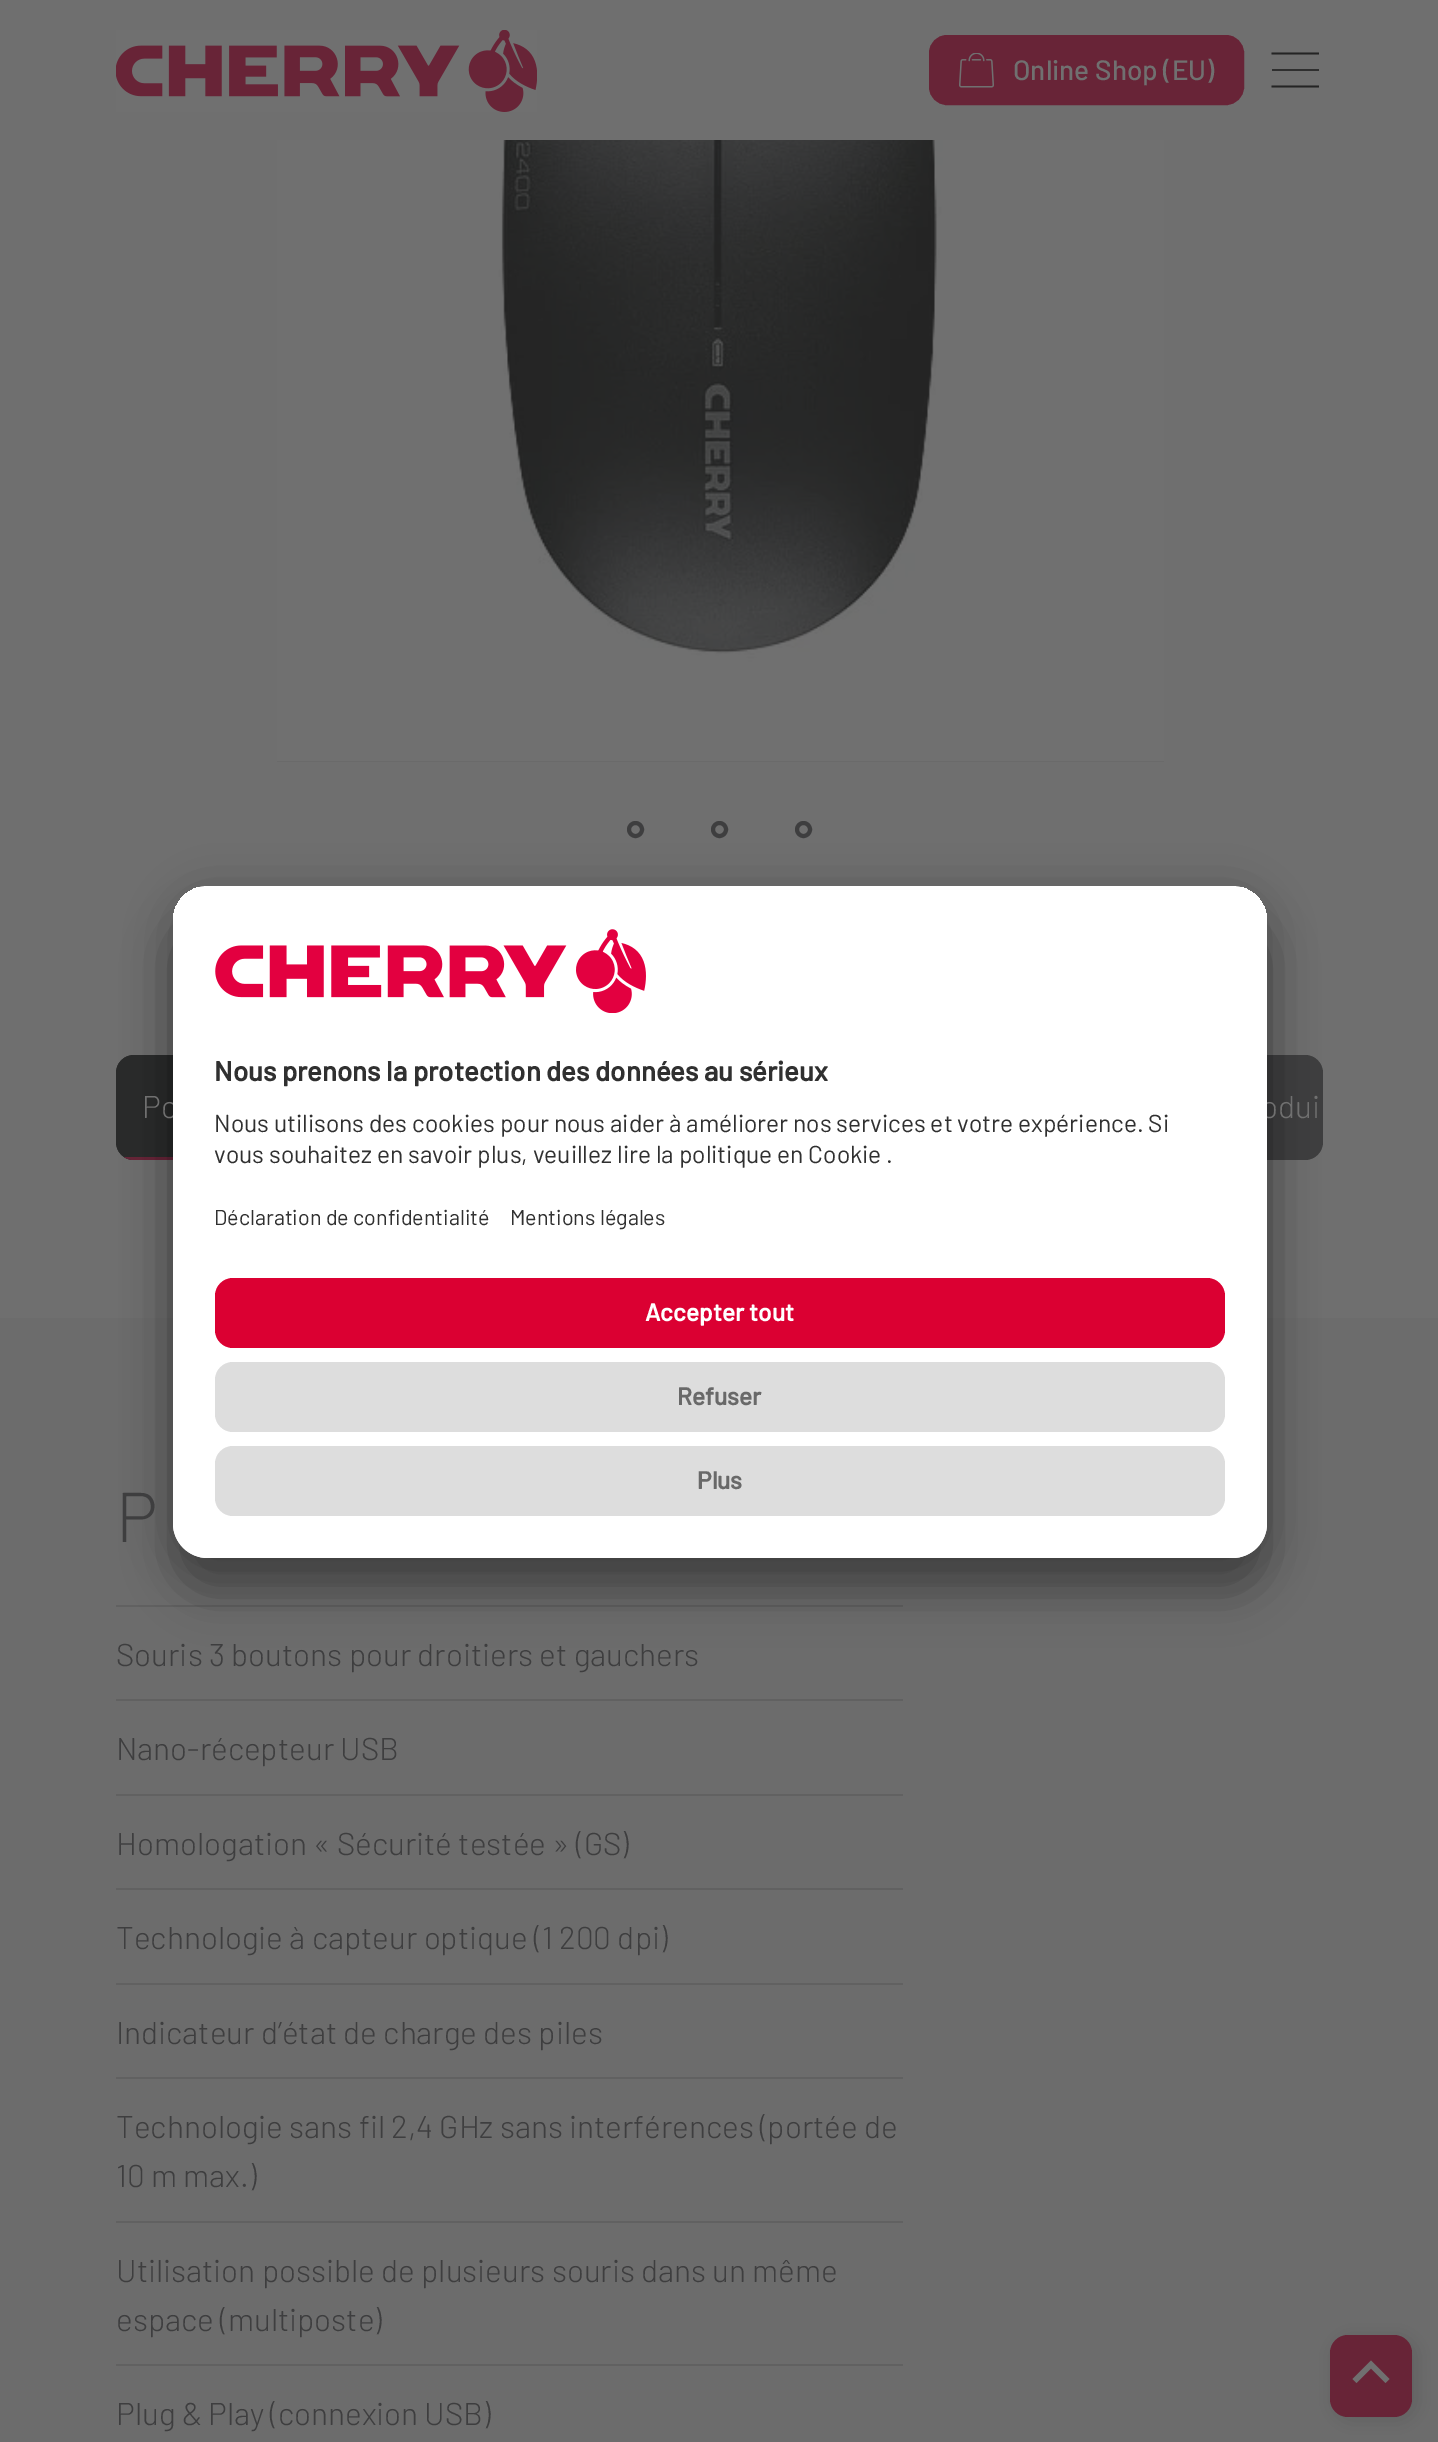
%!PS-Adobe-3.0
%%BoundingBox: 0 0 1438 2442
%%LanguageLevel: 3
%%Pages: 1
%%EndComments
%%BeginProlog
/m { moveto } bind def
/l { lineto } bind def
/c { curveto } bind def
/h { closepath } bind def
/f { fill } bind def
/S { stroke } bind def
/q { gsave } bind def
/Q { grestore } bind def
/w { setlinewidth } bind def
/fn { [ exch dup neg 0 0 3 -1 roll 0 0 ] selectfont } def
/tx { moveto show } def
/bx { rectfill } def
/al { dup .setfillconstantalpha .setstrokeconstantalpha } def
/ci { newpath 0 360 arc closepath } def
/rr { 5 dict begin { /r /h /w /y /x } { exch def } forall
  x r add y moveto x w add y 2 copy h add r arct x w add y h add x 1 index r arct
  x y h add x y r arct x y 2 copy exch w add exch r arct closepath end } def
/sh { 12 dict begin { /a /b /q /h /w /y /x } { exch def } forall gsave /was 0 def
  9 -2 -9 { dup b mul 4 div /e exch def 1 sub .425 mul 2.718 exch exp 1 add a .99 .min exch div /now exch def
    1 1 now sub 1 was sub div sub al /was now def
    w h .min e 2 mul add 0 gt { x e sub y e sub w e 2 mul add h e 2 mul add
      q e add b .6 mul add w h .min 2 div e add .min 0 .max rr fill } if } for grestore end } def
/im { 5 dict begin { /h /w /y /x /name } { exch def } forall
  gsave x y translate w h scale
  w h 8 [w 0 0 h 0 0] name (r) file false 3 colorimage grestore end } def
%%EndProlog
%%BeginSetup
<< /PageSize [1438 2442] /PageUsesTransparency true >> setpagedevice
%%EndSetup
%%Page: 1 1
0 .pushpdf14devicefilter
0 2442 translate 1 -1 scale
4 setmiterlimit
0.435 setgray
0 0 1438 2442 bx
(image0.raw) 116 30 421 82 im
0.408 0.141 0.216 setrgbcolor
930 36 313 68 17 rr q f Q
2 w
S
(image1.raw) 959 53 35 35 im
/Barlow-Medium 28 fn
0.439 setgray
(Online Shop \(EU\)) 1013 80 tx
0.141 setgray
1.7 w
1271.5 53.5 m 1319 53.5 l S
0.184 setgray
1272 69 47 2 bx
0.141 setgray
1271.5 86.5 m 1319 86.5 l S
0.243 0.243 0.247 setrgbcolor
116 1055 1207 105 18 rr f
0.161 0.165 0.165 setrgbcolor
134 1055 m 329 1055 l 329 1160 l 134 1160 l 124 1160 116 1152 116 1142 c 116 1073 l 116 1063 124 1055 134 1055 c h f
0.408 0.141 0.216 setrgbcolor
329 1160 m 327 1157 l 124 1157 l 127 1159 130 1160 134 1160 c h f
0.424 setgray
0 1318 1438 1124 bx
0.38 setgray
116 1605 787 2 bx
0 setgray
173 921 1094 672 35 24.5 0.3 sh
0.243 0.243 0.247 setrgbcolor
4 w
635.5 829.5 6.5 ci S
719.5 829.5 6.5 ci S
803.5 829.5 6.5 ci S
0 setgray
173 894 1094 672 35 23 0.22 sh
/Barlow-Light 31.5 fn
0.439 setgray
(Po) 142 1118 tx
(odui) 1261 1118 tx
1 setgray
173 886 1094 672 35 rr f
q
173 886 1094 672 35 rr clip newpath
208 886 m 1232 886 l 1251.5 886 1267 901.5 1267 921 c 1267 1257 l 173 1257 l 173 921 l 173 901.5 188.5 886 208 886 c h clip newpath
173 887 1094 370 bx
Q
(image2.raw) 215 929 431 84 im
/Barlow-Bold 27.6 fn
0.188 setgray
(Nous prenons la protection des données au sérieux) 214 1081 tx
/Barlow-Regular 24.5 fn
(Nous utilisons des cookies pour nous aider à améliorer nos services et votre expérience. Si) 214 1132 tx
(vous souhaitez en savoir plus, veuillez lire la politique en Cookie .) 214 1163 tx
/Barlow-Regular 21.5 fn
(Déclaration de confidentialité) 214 1225 tx
(Mentions légales) 510 1225 tx
1 setgray
173 1257 m 1267 1257 l 1267 1523 l 1267 1542.5 1251.5 1558 1232 1558 c 208 1558 l 188.5 1558 173 1542.5 173 1523 c h f
0.859 0 0.196 setrgbcolor
215 1278 1010 70 18 rr f
/Barlow-Bold 24.5 fn
1 setgray
(Accepter tout) 645 1321 tx
0.867 setgray
215 1362 1010 70 18 rr f
0.412 setgray
(Refuser) 677 1405 tx
0.867 setgray
215 1446 1010 70 18 rr f
0.412 setgray
(Plus) 697 1489 tx
(image3.raw) 277 140 887 622 im
/Barlow-Light 70 fn
0.243 0.243 0.247 setrgbcolor
(P) 116 1542 tx
0.38 setgray
116 1699 787 2 bx
/Barlow-Light 31.5 fn
0.243 0.243 0.247 setrgbcolor
(Souris 3 boutons pour droitiers et gauchers) 116 1666 tx
0.38 setgray
116 1794 787 2 bx
0.243 0.243 0.247 setrgbcolor
(Nano-récepteur USB) 116 1760 tx
0.38 setgray
116 1888 787 2 bx
0.243 0.243 0.247 setrgbcolor
(Homologation « Sécurité testée » \(GS\)) 116 1855 tx
0.38 setgray
116 1983 787 2 bx
0.243 0.243 0.247 setrgbcolor
(Technologie à capteur optique \(1 200 dpi\)) 116 1949 tx
0.38 setgray
116 2077 787 2 bx
0.243 0.243 0.247 setrgbcolor
(Indicateur d’état de charge des piles) 116 2044 tx
0.38 setgray
116 2221 787 2 bx
0.243 0.243 0.247 setrgbcolor
(Technologie sans fil 2,4 GHz sans interférences \(portée de) 116 2138 tx
(10 m max.\)) 116 2187 tx
0.38 setgray
116 2364 787 2 bx
0.243 0.243 0.247 setrgbcolor
(Utilisation possible de plusieurs souris dans un même) 116 2282 tx
(espace \(multiposte\)) 116 2331 tx
(Plug & Play \(connexion USB\)) 116 2425 tx
0.141 setgray
1334 2338 82 82 18 9 0.15 sh
0.408 0.141 0.216 setrgbcolor
1330 2335 82 82 18 rr f
0.439 setgray
5.5 w
1354.5 2381 m 1371 2364.5 l 1387.5 2381 l S
.poppdf14devicefilter showpage
%%EOF
